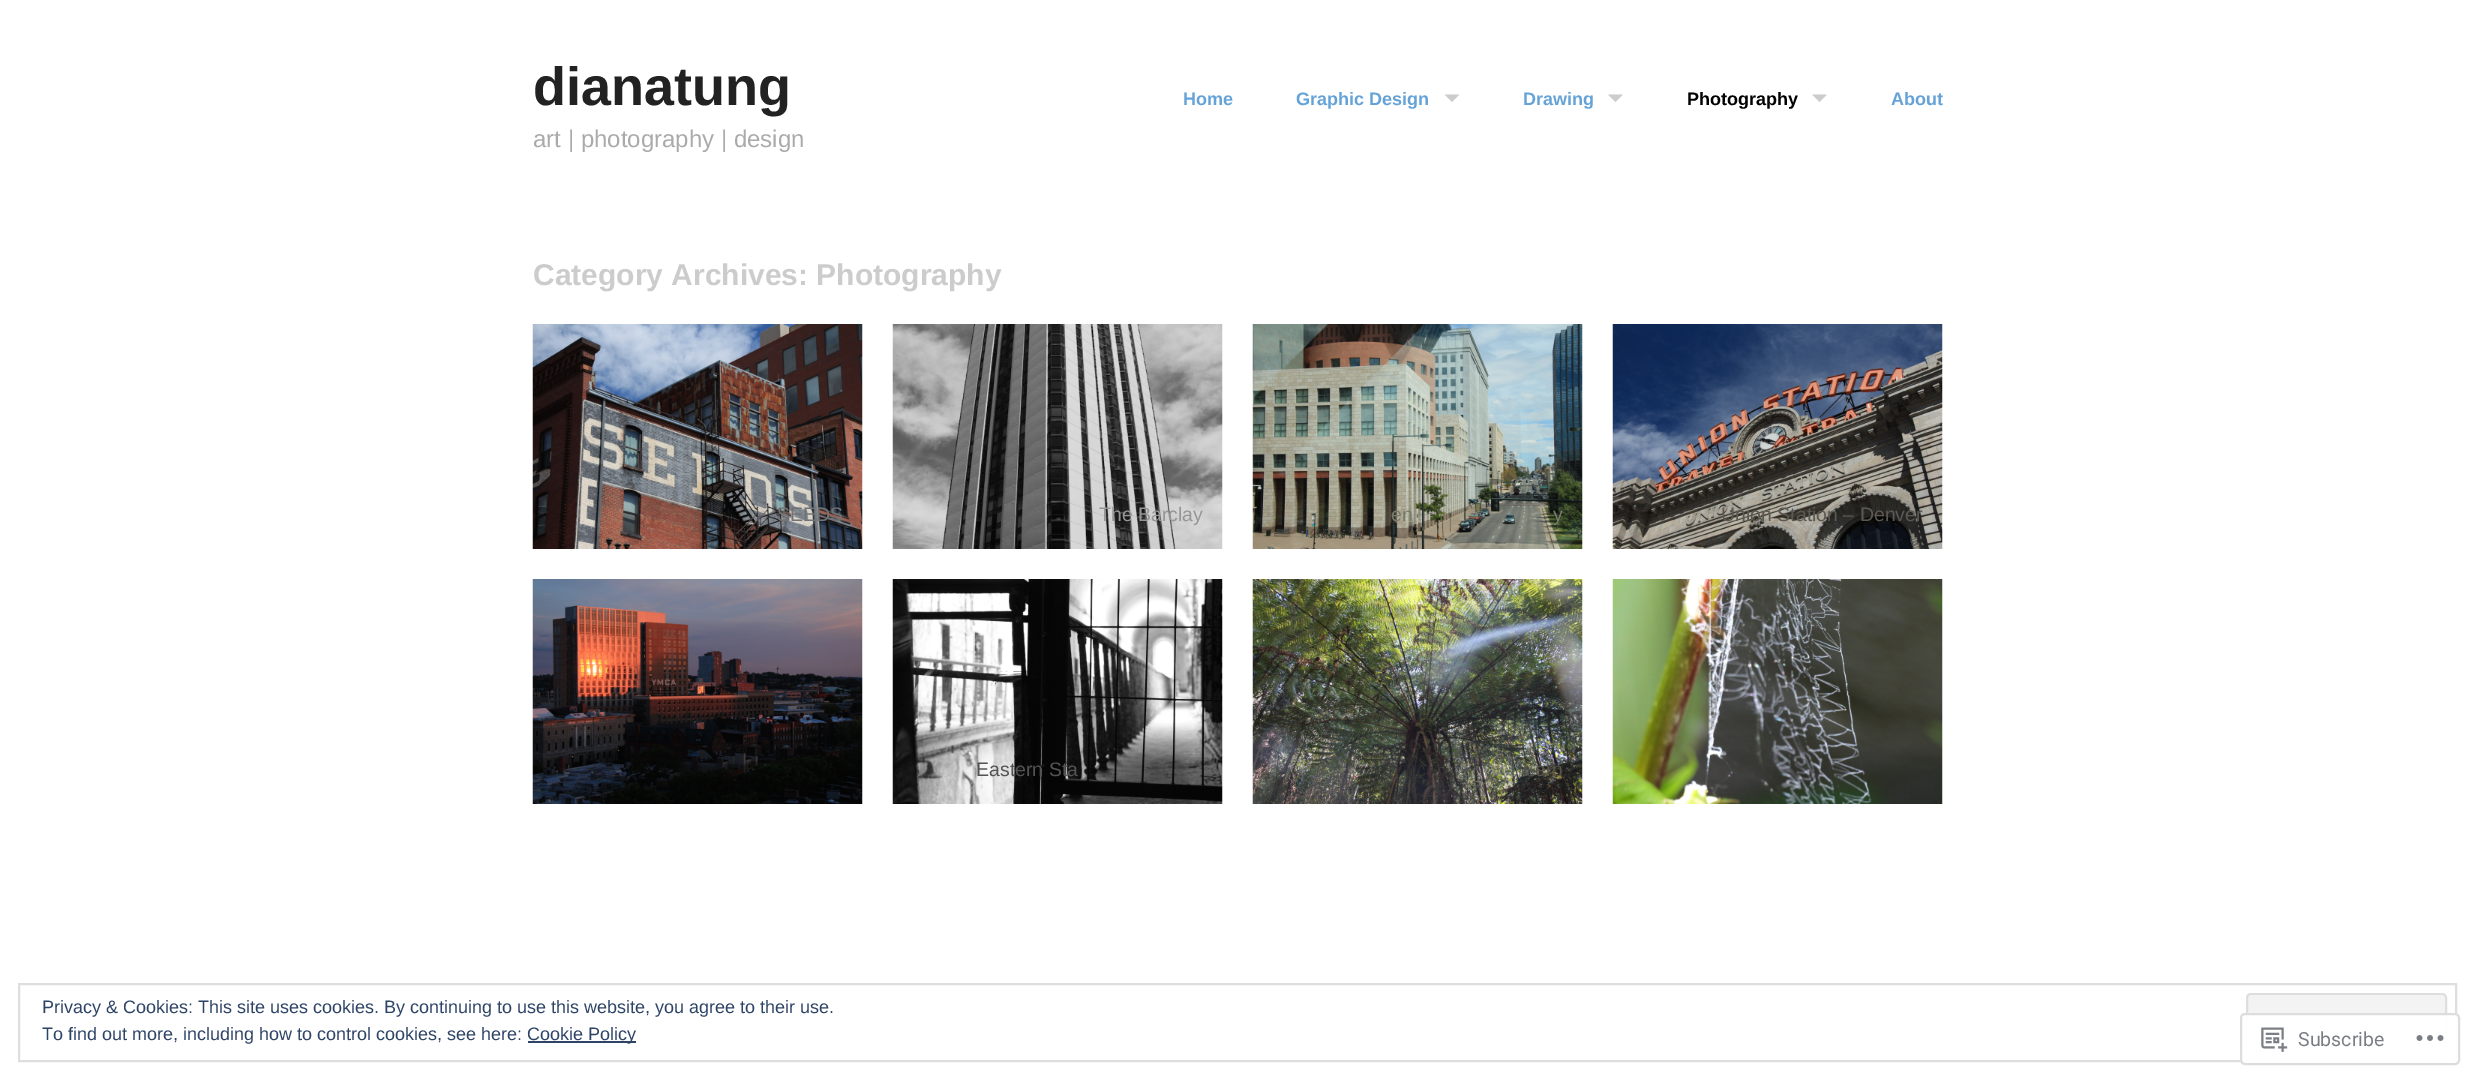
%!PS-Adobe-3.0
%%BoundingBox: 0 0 2475 1079
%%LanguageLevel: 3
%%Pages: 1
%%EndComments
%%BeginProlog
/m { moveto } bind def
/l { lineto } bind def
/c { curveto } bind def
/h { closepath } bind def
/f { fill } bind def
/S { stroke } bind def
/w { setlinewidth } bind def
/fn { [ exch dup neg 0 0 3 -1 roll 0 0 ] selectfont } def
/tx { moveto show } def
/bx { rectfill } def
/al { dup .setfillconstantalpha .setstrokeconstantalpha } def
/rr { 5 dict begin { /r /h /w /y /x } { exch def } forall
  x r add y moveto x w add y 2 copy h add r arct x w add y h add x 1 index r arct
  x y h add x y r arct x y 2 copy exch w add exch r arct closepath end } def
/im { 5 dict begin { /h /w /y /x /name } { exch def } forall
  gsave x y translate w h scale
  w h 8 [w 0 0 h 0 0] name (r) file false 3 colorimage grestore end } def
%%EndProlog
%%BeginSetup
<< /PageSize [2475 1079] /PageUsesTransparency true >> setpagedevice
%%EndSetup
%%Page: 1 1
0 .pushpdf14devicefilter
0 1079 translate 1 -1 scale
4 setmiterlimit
1 setgray
0 0 2475 1079 bx
/LiberationSans-Bold 54 fn
0.133 setgray
(dianatung) 533 105 tx
/LiberationSans-Regular 24 fn
0.667 setgray
(art | photography | design) 533 147 tx
/LiberationSans-Bold 18 fn
0.392 0.635 0.847 setrgbcolor
(Home) 1183 105 tx
(Graphic Design) 1296 105 tx
0.8 setgray
1444.5 94.5 m 1459.5 94.5 l 1452 102 l h f
0.392 0.635 0.847 setrgbcolor
(Drawing) 1523 105 tx
0.8 setgray
1608 94.5 m 1623 94.5 l 1615.5 102 l h f
0 setgray
(Photography) 1687 105 tx
0.8 setgray
1812 94.5 m 1827 94.5 l 1819.5 102 l h f
0.392 0.635 0.847 setrgbcolor
(About) 1891 105 tx
/LiberationSans-Bold 30 fn
0.8 setgray
(Category Archives: Photography) 533 285 tx
(image0.raw) 532 324 331 225 im
/LiberationSans-Regular 19.5 fn
0.447 0.451 0.459 setrgbcolor
(SEEDS) 777 521 tx
(image1.raw) 892 324 331 225 im
0.588 setgray
(The Barclay) 1099 521 tx
(image2.raw) 1252 324 331 225 im
0.471 0.478 0.42 setrgbcolor
(en) 1391 521 tx
(y) 1553 521 tx
(image3.raw) 1612 324 331 225 im
0.353 0.345 0.318 setrgbcolor
(Union Station – Denver) 1721 521 tx
(image4.raw) 532 579 331 225 im
(image5.raw) 892 579 331 225 im
0.325 setgray
(Eastern Sta) 976 776 tx
(image6.raw) 1252 579 331 225 im
0.329 0.333 0.278 setrgbcolor
(Fern) 1523 776 tx
(image7.raw) 1612 579 331 225 im
0.871 setgray
2 w
19 984 2437 77 rectstroke
/LiberationSans-Regular 18 fn
0.18 0.267 0.404 setrgbcolor
(Privacy & Cookies: This site uses cookies. By continuing to use this website, you agree to their use.) 42 1013 tx
0.953 setgray
2246 993 201 59 5 rr f
0.976 setgray
2250 996 m 2442 996 l 2444 996 2445 997 2445 999 c 2445 997 2444 995 2442 995 c 2250 995 l 2248 995 2247 997 2247 999 c 2247 997 2248 996 2250 996 c h f
0.871 setgray
2247 994 199 57 4 rr S
0.18 0.267 0.404 setrgbcolor
(To find out more, including how to control cookies, see here:) 42 1040 tx
528 1041 108 2 bx
(Cookie Policy) 527 1040 tx
0.98 al
1 setgray
2240 1013 220 52 5 rr f
0.863 0.863 0.871 setrgbcolor
2241 1014 218 50 4 rr S
1 al
(image8.raw) 2261 1027 27 25 im
/Roboto-Regular 19.5 fn
0.478 0.494 0.518 setrgbcolor
(Subscribe) 2298 1046 tx
(image9.raw) 2416 1035 28 6 im
.poppdf14devicefilter showpage
%%EOF
